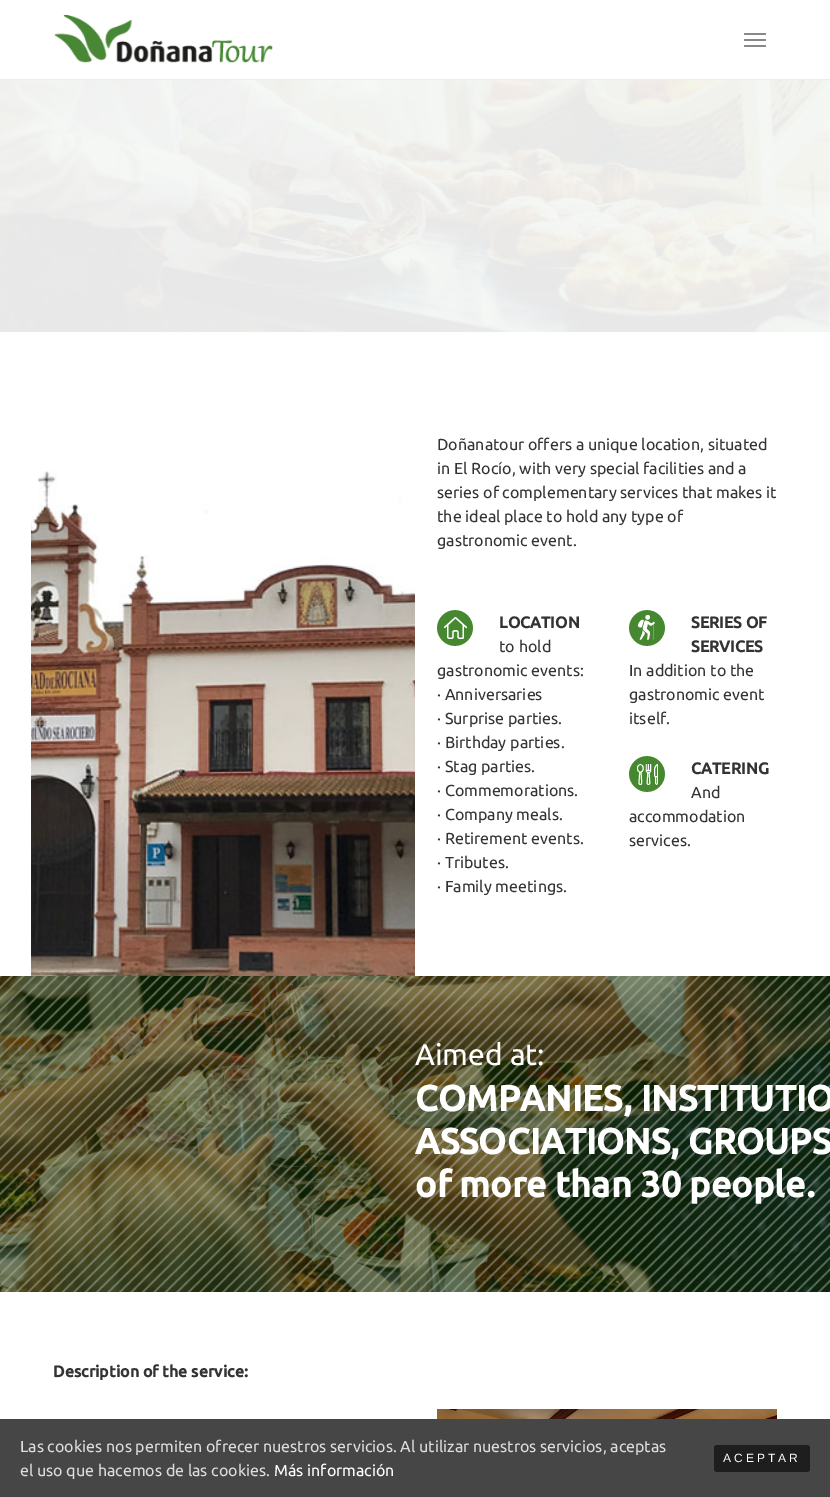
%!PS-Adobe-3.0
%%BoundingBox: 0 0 830 1497
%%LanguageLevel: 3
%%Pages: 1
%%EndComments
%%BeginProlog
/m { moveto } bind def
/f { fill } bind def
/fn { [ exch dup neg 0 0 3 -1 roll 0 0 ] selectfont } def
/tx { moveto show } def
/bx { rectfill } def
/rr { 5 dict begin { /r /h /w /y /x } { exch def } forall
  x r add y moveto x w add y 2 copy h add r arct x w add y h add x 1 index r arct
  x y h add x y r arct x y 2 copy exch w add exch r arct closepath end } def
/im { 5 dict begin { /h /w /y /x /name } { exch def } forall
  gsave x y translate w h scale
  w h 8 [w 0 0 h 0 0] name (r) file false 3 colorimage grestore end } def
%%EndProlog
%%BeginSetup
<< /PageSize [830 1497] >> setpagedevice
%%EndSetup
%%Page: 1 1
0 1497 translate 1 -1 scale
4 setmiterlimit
1 setgray
0 0 830 1497 bx
0.925 setgray
0 79 830 1 bx
(image0.raw) 54 14 219 49 im
0.533 setgray
744 33 22 2 1 rr f
744 39 22 2 1 rr f
744 45 22 2 1 rr f
(image1.raw) 0 80 830 252 im
(image2.raw) 31 471 384 505 im
/Ubuntu-Regular 16 fn
0.2 setgray
(Doñanatour offers a unique location, situated) 437 450 tx
(in El Rocío, with very special facilities and a) 437 474 tx
(series of complementary services that makes it) 437 498 tx
(the ideal place to hold any type of) 437 522 tx
(gastronomic event.) 437 546 tx
(image3.raw) 437 610 36 36 im
/Ubuntu-Bold 16 fn
(LOCATION) 499 628 tx
/Ubuntu-Regular 16 fn
(to hold) 499 652 tx
(gastronomic events:) 437 676 tx
(· Anniversaries) 437 700 tx
(· Surprise parties.) 437 724 tx
(· Birthday parties.) 437 748 tx
(· Stag parties.) 437 772 tx
(· Commemorations.) 437 796 tx
(· Company meals.) 437 820 tx
(· Retirement events.) 437 844 tx
(· Tributes.) 437 868 tx
(· Family meetings.) 437 892 tx
(image4.raw) 629 610 36 36 im
/Ubuntu-Bold 16 fn
(SERIES OF) 691 628 tx
(SERVICES) 691 652 tx
/Ubuntu-Regular 16 fn
(In addition to the) 629 676 tx
(gastronomic event) 629 700 tx
(itself.) 629 724 tx
(image5.raw) 629 756 36 36 im
/Ubuntu-Bold 16 fn
(CATERING) 691 774 tx
/Ubuntu-Regular 16 fn
(And) 691 798 tx
(accommodation) 629 822 tx
(services.) 629 846 tx
(image6.raw) 0 976 830 316 im
/Ubuntu-Regular 30 fn
1 setgray
(Aimed at:) 415 1065 tx
/Ubuntu-Bold 36 fn
(COMPANIES, INSTITUTIO) 415 1111 tx
(ASSOCIATIONS, GROUPS) 415 1154 tx
(of more than 30 people.) 415 1197 tx
/Ubuntu-Bold 16 fn
0.2 setgray
(Description of the service:) 53 1377 tx
(image7.raw) 437 1409 340 10 im
0.275 setgray
0 1419 830 78 bx
/Ubuntu-Regular 16 fn
0.867 setgray
(Las cookies nos permiten ofrecer nuestros servicios. Al utilizar nuestros servicios, aceptas) 20 1452 tx
(el uso que hacemos de las cookies.) 20 1476 tx
1 setgray
(Más información) 274 1476 tx
0.118 setgray
714 1445 96 27 3 rr f
/LiberationSans-Regular 12 fn
1 setgray
723 1462 m 3 0 (ACEPTAR) ashow
showpage
%%EOF
